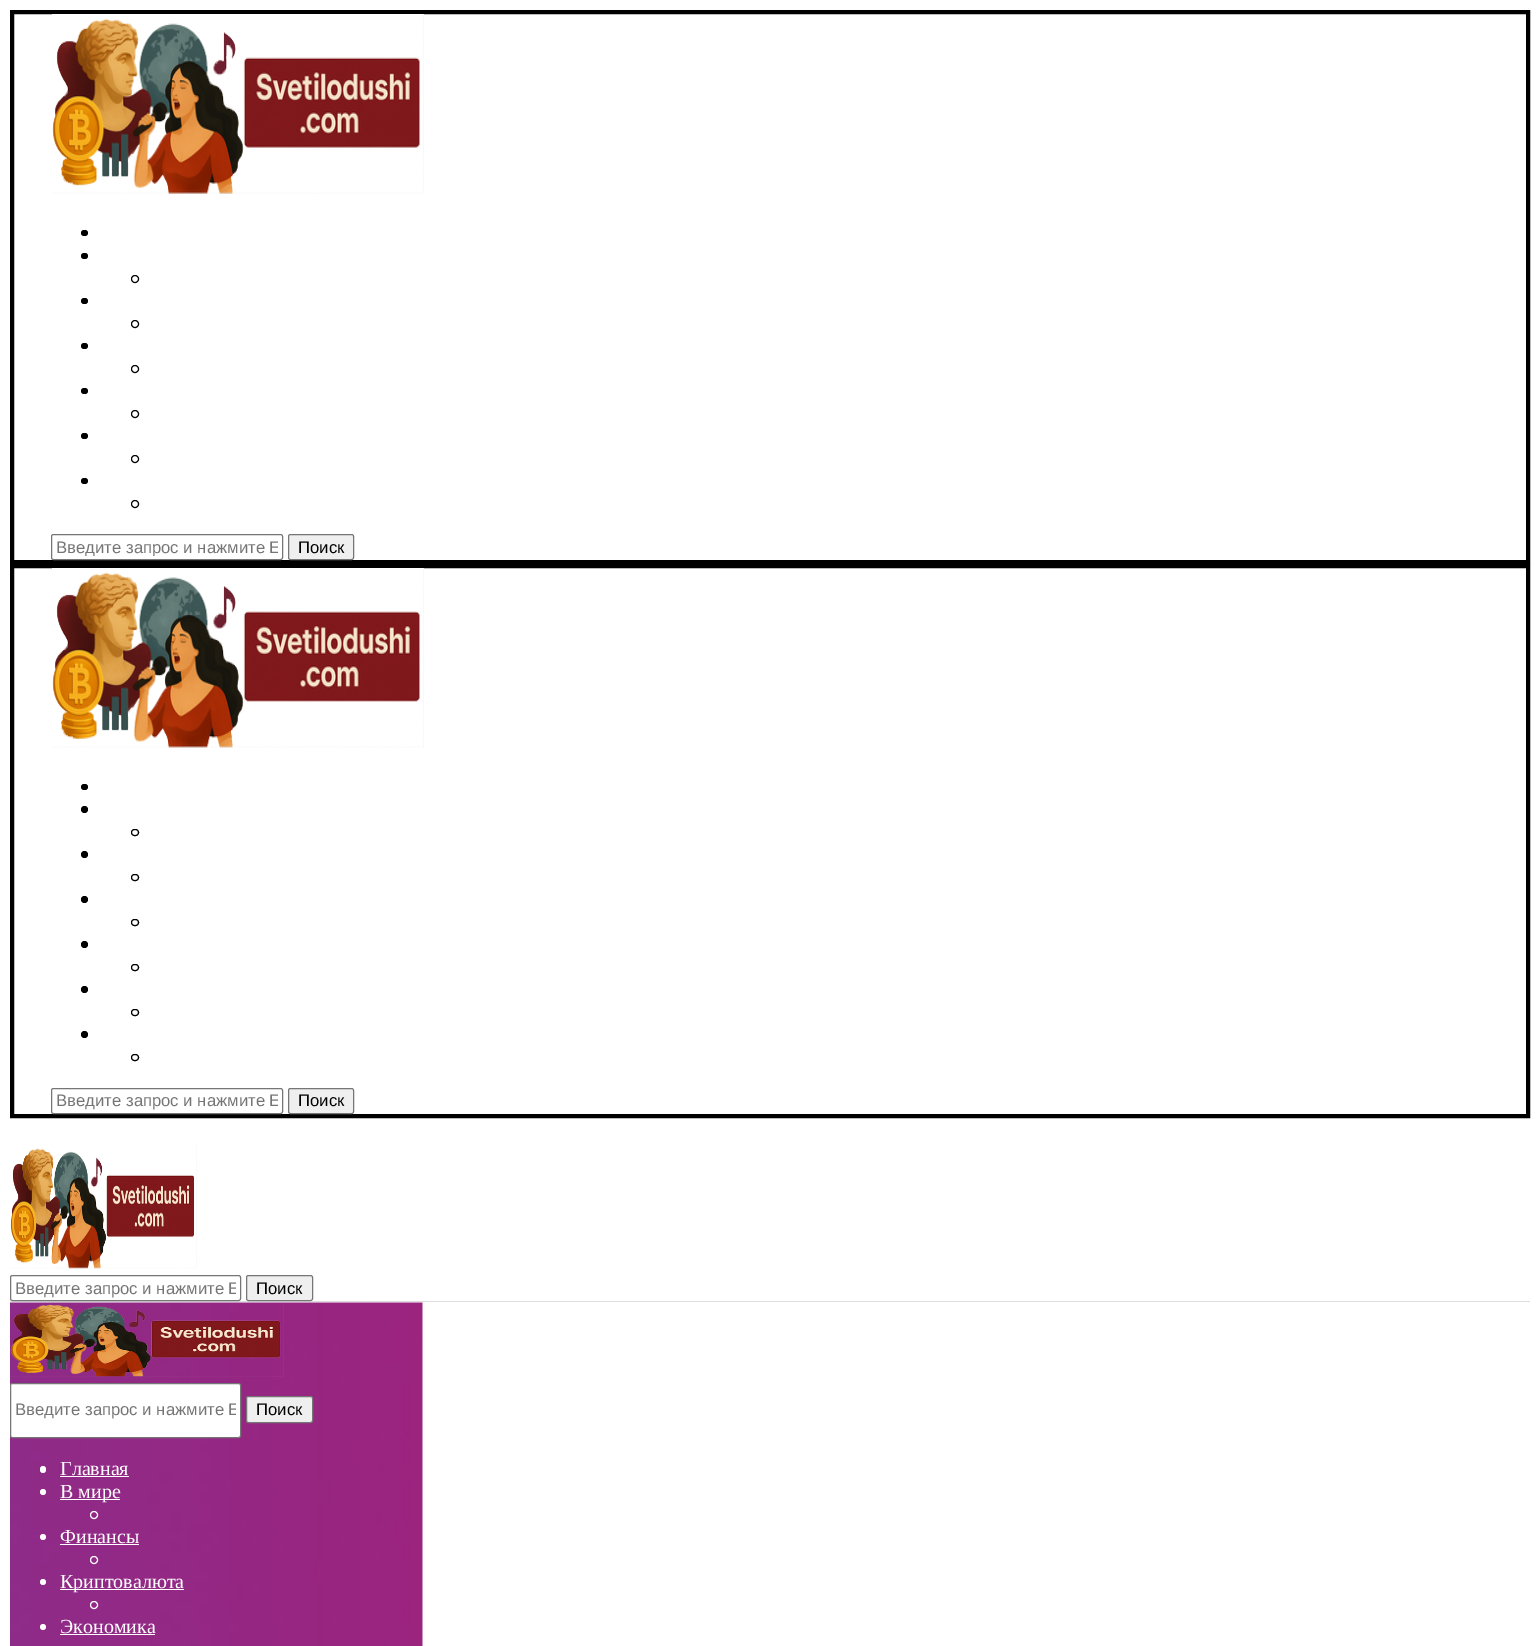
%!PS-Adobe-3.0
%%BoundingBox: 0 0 1539 1646
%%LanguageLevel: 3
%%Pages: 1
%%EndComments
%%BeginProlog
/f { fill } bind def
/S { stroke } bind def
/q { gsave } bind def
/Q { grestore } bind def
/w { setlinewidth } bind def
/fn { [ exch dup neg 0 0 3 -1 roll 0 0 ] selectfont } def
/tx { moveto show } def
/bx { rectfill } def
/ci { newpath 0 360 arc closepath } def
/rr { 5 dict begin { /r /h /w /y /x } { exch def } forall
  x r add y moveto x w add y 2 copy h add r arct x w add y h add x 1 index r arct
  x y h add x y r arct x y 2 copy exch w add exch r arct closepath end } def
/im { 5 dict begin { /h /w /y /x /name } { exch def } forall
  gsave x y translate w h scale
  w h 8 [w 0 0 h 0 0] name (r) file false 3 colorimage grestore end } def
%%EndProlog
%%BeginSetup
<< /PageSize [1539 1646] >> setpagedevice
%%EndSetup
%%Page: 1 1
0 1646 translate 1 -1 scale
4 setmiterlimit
1 setgray
0 0 1539 1646 bx
0 setgray
4 w
12 12 1516 550 rectstroke
(image0.raw) 52 14 372 180 im
81 230 7 6 3 rr f
81 253 7 6 3 rr f
1 w
135 279 3.5 ci S
81 298 7 6 3 rr f
135 324 3.5 ci S
81 343 7 6 3 rr f
135 369 3.5 ci S
81 388 7 6 3 rr f
135 414 3.5 ci S
81 433 7 6 3 rr f
135 459 3.5 ci S
81 478 7 6 3 rr f
135 504 3.5 ci S
0.463 setgray
51.5 534.5 231 25 2 rr S
q
56 538 222 18 rectclip
/LiberationSans-Regular 16.7 fn
0.459 setgray
(Введите запрос и нажмите E) 56 553 tx
Q
0.937 setgray
288.5 534.5 65 25 2 rr q f Q
0.463 setgray
S
/LiberationSans-Regular 16.7 fn
0 setgray
(Поиск) 298 553 tx
4 w
12 566 1516 550 rectstroke
(image1.raw) 52 567 372 181 im
81 784 7 6 3 rr f
84.5 809.5 3.5 ci f
1 w
131.5 829.5 7 6 3 rr S
84.5 854.5 3.5 ci f
131.5 874.5 7 6 3 rr S
84.5 899.5 3.5 ci f
131.5 919.5 7 6 3 rr S
84.5 944.5 3.5 ci f
131.5 964.5 7 6 3 rr S
84.5 989.5 3.5 ci f
131.5 1009.5 7 6 3 rr S
84.5 1034.5 3.5 ci f
131.5 1054.5 7 6 3 rr S
0.463 setgray
51.5 1088.5 231 25 2 rr S
q
56 1091 222 19 rectclip
0.459 setgray
(Введите запрос и нажмите E) 56 1106 tx
Q
0.937 setgray
288.5 1088.5 65 25 2 rr q f Q
0.463 setgray
S
0 setgray
(Поиск) 298 1106 tx
0.871 setgray
10 1301 1520 1 bx
(image2.raw) 10 1145 187 124 im
0.463 setgray
10.5 1275.5 230 25 2 rr S
q
15 1279 221 19 rectclip
0.459 setgray
(Введите запрос и нажмите E) 15 1294 tx
Q
0.937 setgray
246.5 1275.5 66 25 2 rr q f Q
0.463 setgray
S
0 setgray
(Поиск) 256 1294 tx
(image3.raw) 10 1302 413 344 im
(image4.raw) 10 1303 274 74 im
1 setgray
10.5 1383.5 230 54 2 rr q f Q
0.463 setgray
S
q
15 1400 221 19 rectclip
0.459 setgray
(Введите запрос и нажмите E) 15 1415 tx
Q
0.937 setgray
246.5 1396.5 66 26 2 rr q f Q
0.463 setgray
S
0 setgray
(Поиск) 256 1415 tx
1 setgray
40 1466 6 7 3 rr f
/LiberationSerif-Regular 20 fn
(Главная) 60 1475 tx
60 1476 69 1 bx
43 1492 3 ci f
60 1499 60 1 bx
(В мире) 60 1498 tx
94 1515 3.5 ci S
43 1537 3 ci f
(Финансы) 60 1543 tx
60 1544 79 1 bx
94 1560 3.5 ci S
43 1582 3 ci f
60 1589 124 1 bx
(Криптовалюта) 60 1588 tx
94 1605 3.5 ci S
43 1627 3 ci f
(Экономика) 60 1633 tx
60 1634 95 1 bx
showpage
%%EOF
